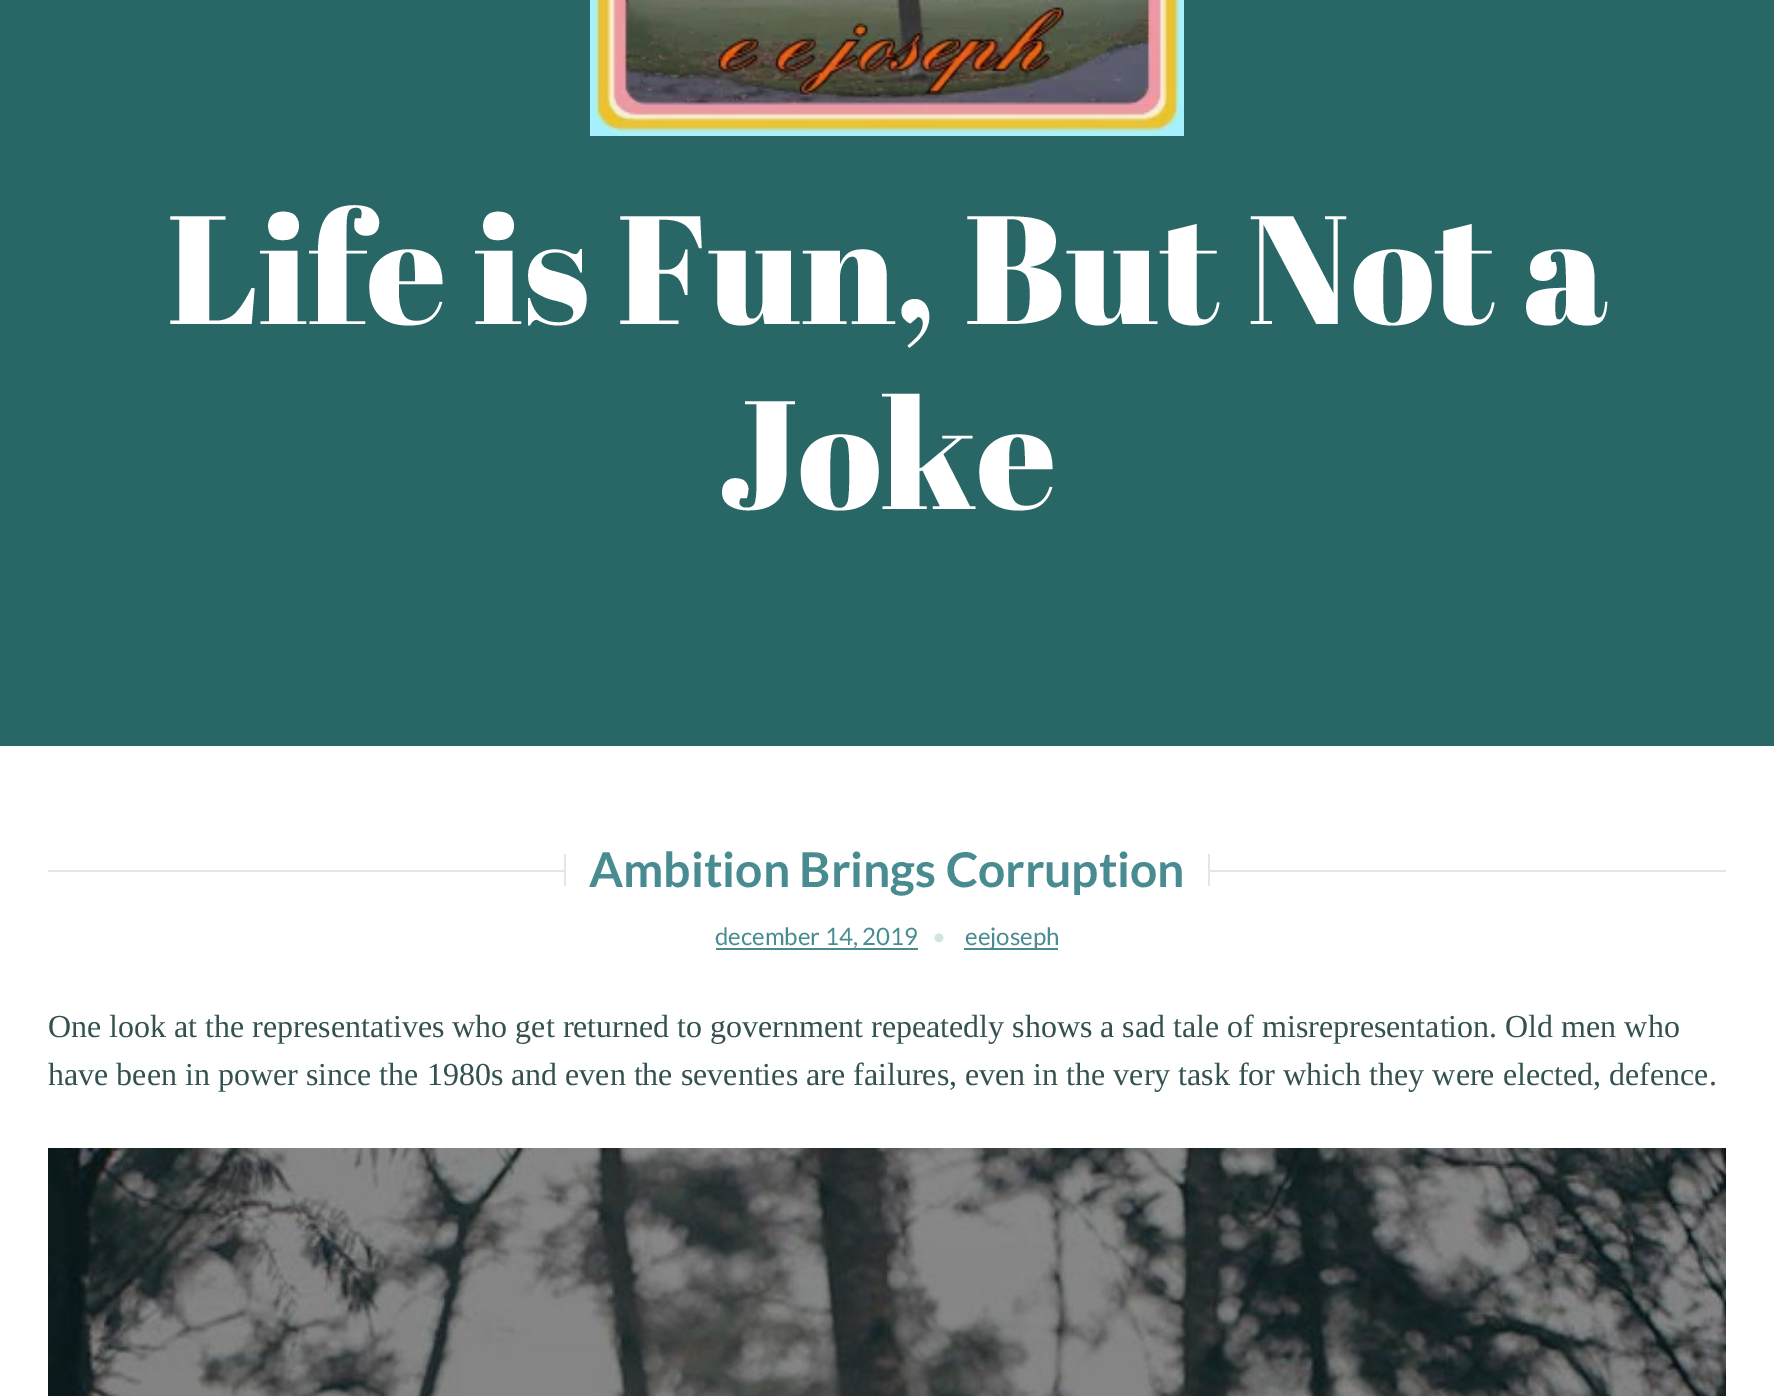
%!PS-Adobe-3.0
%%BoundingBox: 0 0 1774 1396
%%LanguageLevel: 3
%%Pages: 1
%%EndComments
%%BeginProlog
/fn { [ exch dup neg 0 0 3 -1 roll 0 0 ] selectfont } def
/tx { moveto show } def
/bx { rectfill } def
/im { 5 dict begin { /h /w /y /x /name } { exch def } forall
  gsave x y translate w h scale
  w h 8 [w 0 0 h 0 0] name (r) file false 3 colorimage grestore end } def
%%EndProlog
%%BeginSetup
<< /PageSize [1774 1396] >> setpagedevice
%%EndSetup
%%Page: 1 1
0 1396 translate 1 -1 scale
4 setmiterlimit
1 setgray
0 0 1774 1396 bx
0.161 0.4 0.4 setrgbcolor
0 0 1774 746 bx
(image0.raw) 590 0 594 136 im
/AbrilFatface-Regular 154 fn
1 setgray
(Life is Fun, But Not a) 167 324 tx
(Joke) 718 509 tx
0.886 0.906 0.918 setrgbcolor
48 870 1678 2 bx
1 setgray
566 870 642 2 bx
0.886 0.906 0.918 setrgbcolor
564 854 2 32 bx
/Lato-Bold 48 fn
0.282 0.549 0.569 setrgbcolor
(Ambition Brings Corruption) 589 887 tx
0.886 0.906 0.918 setrgbcolor
1208 854 2 32 bx
0.282 0.549 0.569 setrgbcolor
716 948 202 2 bx
/Lato-Regular 24 fn
(december 14, 2019) 715 945 tx
0.824 0.898 0.89 setrgbcolor
(•) 932 945 tx
0.282 0.549 0.569 setrgbcolor
964 948 94 2 bx
(eejoseph) 965 945 tx
/LiberationSerif-Regular 32 fn
0.204 0.318 0.318 setrgbcolor
(One look at the representatives who get returned to government repeatedly shows a sad tale of misrepresentation. Old men who) 48 1037 tx
(have been in power since the 1980s and even the seventies are failures, even in the very task for which they were elected, defence.) 48 1085 tx
(image1.raw) 48 1148 1678 248 im
showpage
%%EOF
